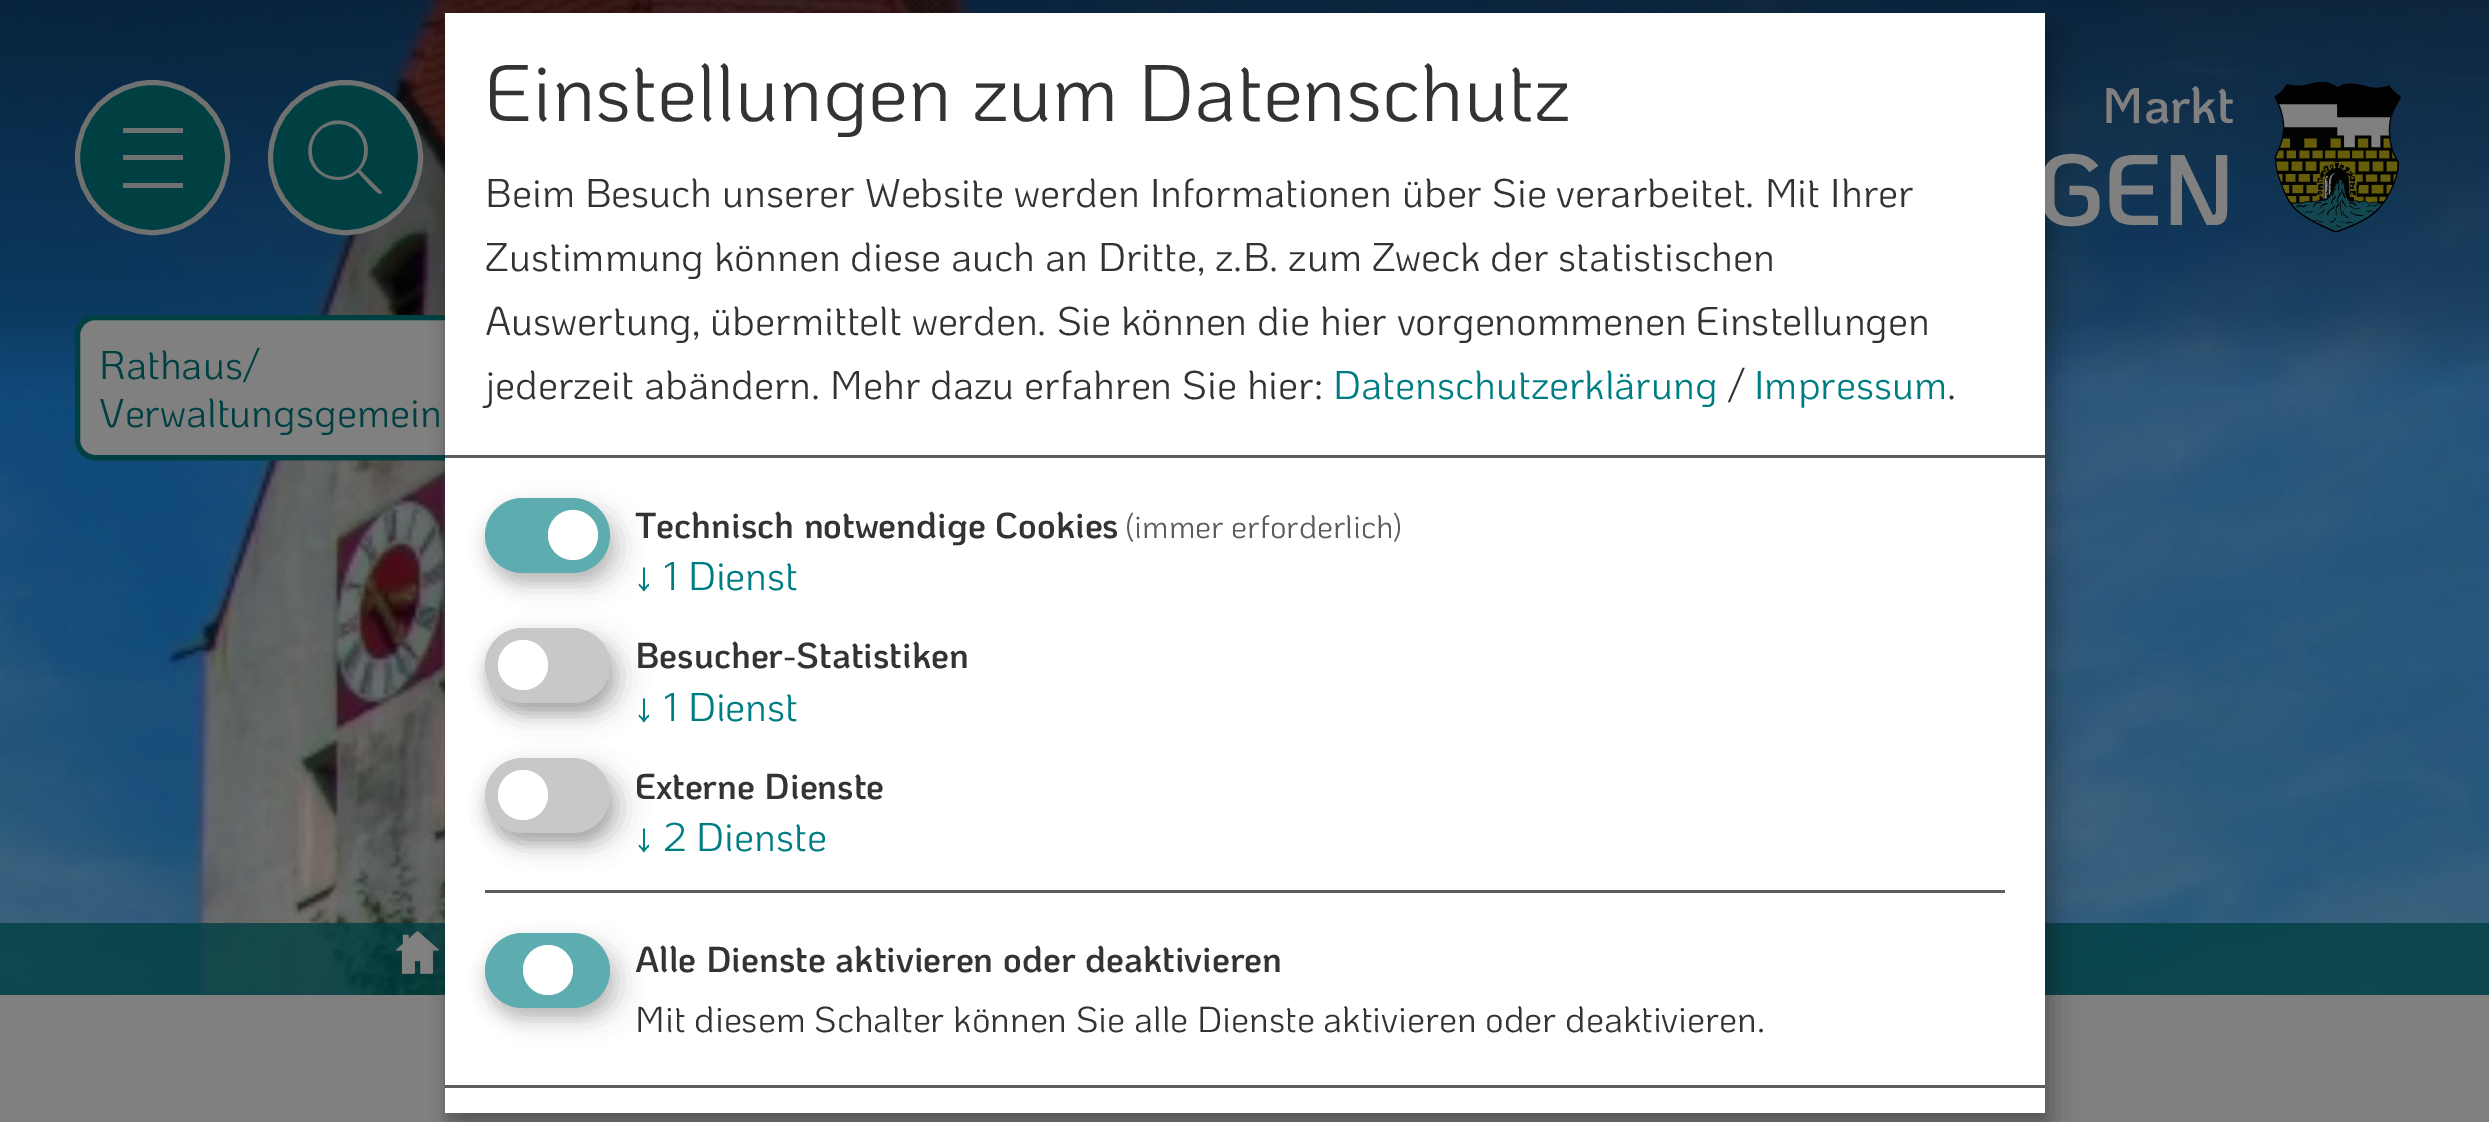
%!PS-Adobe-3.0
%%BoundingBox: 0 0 2489 1122
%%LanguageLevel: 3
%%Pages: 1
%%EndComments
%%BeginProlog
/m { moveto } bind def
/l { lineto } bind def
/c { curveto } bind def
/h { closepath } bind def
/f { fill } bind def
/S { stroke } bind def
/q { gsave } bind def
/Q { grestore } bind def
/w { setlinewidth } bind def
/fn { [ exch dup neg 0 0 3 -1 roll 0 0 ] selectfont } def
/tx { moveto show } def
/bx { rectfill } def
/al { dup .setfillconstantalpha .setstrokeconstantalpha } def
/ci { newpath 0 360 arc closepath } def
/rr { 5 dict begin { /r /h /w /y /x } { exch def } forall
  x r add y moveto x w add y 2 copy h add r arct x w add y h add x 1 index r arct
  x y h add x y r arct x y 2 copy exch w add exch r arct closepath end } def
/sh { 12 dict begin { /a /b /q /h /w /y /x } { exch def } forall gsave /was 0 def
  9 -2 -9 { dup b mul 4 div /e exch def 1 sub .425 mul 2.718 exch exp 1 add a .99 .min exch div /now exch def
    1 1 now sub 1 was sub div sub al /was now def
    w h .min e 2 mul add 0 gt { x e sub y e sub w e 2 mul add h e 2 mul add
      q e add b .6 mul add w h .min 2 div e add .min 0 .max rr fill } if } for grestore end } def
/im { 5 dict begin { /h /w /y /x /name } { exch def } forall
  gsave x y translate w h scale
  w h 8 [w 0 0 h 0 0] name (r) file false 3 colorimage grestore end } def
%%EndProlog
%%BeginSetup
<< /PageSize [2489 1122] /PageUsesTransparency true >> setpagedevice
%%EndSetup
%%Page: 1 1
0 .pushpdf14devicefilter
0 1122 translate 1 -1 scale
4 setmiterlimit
0.502 setgray
0 0 2489 1122 bx
(image0.raw) 0 0 2489 995 im
0.8 al
0 0.247 0.259 setrgbcolor
0 923 2489 72 bx
1 al
(image1.raw) 396 931 43 43 im
345.5 157.5 75 ci q f Q
0.435 0.443 0.439 setrgbcolor
5 w
S
0 0.247 0.259 setrgbcolor
77.5 317.5 600 140 17.5 rr S
0.502 setgray
77.5 317.5 600 140 17.5 rr q f Q
0 0.247 0.259 setrgbcolor
S
0 setgray
458 25 1600 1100 0 12.5 0.19 sh
445 23 1600 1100 0 7.5 0.2 sh
/KoHo-SemiBold 100 fn
0.502 setgray
(GEN) 2037 225 tx
1 setgray
445 13 1600 1100 bx
0.361 setgray
445 455 1600 3 bx
/KoHo-Regular 80 fn
0.2 setgray
(Einstellungen zum Datenschutz) 485 121 tx
/KoHo-Regular 40 fn
(Beim Besuch unserer Website werden Informationen über Sie verarbeitet. Mit Ihrer) 485 207 tx
(Zustimmung können diese auch an Dritte, z.B. zum Zweck der statistischen) 485 271 tx
(Auswertung, übermittelt werden. Sie können die hier vorgenommenen Einstellungen) 485 335 tx
(jederzeit abändern. Mehr dazu erfahren Sie hier:) 485 399 tx
0 0.49 0.514 setrgbcolor
(Datenschutzerklärung) 1333 399 tx
0.2 setgray
(/) 1728 399 tx
0 0.49 0.514 setrgbcolor
(Impressum) 1754 399 tx
0.2 setgray
(.) 1947 399 tx
0 setgray
498 510 125 75 37.5 12.5 0.15 sh
0.2 setgray
485 508 125 75 37.5 7.5 0.2 sh
0.361 0.675 0.69 setrgbcolor
485 498 125 75 37.5 rr f
1 setgray
573 535 25 ci f
/KoHo-SemiBold 36 fn
0.2 setgray
(Technisch notwendige Cookies) 635 538 tx
/KoHo-Regular 32 fn
0.361 setgray
(\(immer erforderlich\)) 1125 538 tx
/KoHo-Regular 40 fn
0 0.49 0.514 setrgbcolor
(↓ 1 Dienst) 635 590 tx
0 setgray
498 640 125 75 37.5 12.5 0.19 sh
485 638 125 75 37.5 7.5 0.2 sh
0.784 setgray
485 628 125 75 37.5 rr f
1 setgray
523 665 25 ci f
/KoHo-SemiBold 36 fn
0.2 setgray
(Besucher-Statistiken) 635 668 tx
/KoHo-Regular 40 fn
0 0.49 0.514 setrgbcolor
(↓ 1 Dienst) 635 721 tx
0 setgray
498 770 125 75 37.5 12.5 0.19 sh
485 768 125 75 37.5 7.5 0.2 sh
0.784 setgray
485 758 125 75 37.5 rr f
1 setgray
523 795 25 ci f
/KoHo-SemiBold 36 fn
0.2 setgray
(Externe Dienste) 635 799 tx
/KoHo-Regular 40 fn
0 0.49 0.514 setrgbcolor
(↓ 2 Dienste) 635 851 tx
0.361 setgray
485 890 1520 3 bx
0 setgray
498 945 125 75 37.5 12.5 0.15 sh
0.2 setgray
485 943 125 75 37.5 7.5 0.2 sh
0.361 0.675 0.69 setrgbcolor
485 933 125 75 37.5 rr f
1 setgray
548 970 25 ci f
/KoHo-SemiBold 36 fn
0.2 setgray
(Alle Dienste aktivieren oder deaktivieren) 635 972 tx
/KoHo-Regular 36 fn
(Mit diesem Schalter können Sie alle Dienste aktivieren oder deaktivieren.) 635 1032 tx
0.361 setgray
445 1085 1600 3 bx
0 0.247 0.259 setrgbcolor
152.5 157.5 75 ci q f Q
0.435 0.443 0.439 setrgbcolor
S
123 128 60 5 bx
123 155 60 5 bx
123 183 60 5 bx
381 191 m 360 170 l 379 149 361 116 332 121 c 327 123 321 125 317 130 c 313 134 310 139 309 145 c 303 173 337 191 358 172 c 361 176 377 194 380 194 c 382 194 382 193 381 191 c h 338 177 m 303 177 303 124 338 124 c 373 124 373 177 338 177 c h f
/KoHo-SemiBold 50 fn
0.502 setgray
(Markt) 2102 123 tx
(image2.raw) 2274 81 127 152 im
/KoHo-Regular 40 fn
0 0.247 0.259 setrgbcolor
(Rathaus/) 99 379 tx
(Verwaltungsgemein) 99 427 tx
.poppdf14devicefilter showpage
%%EOF
